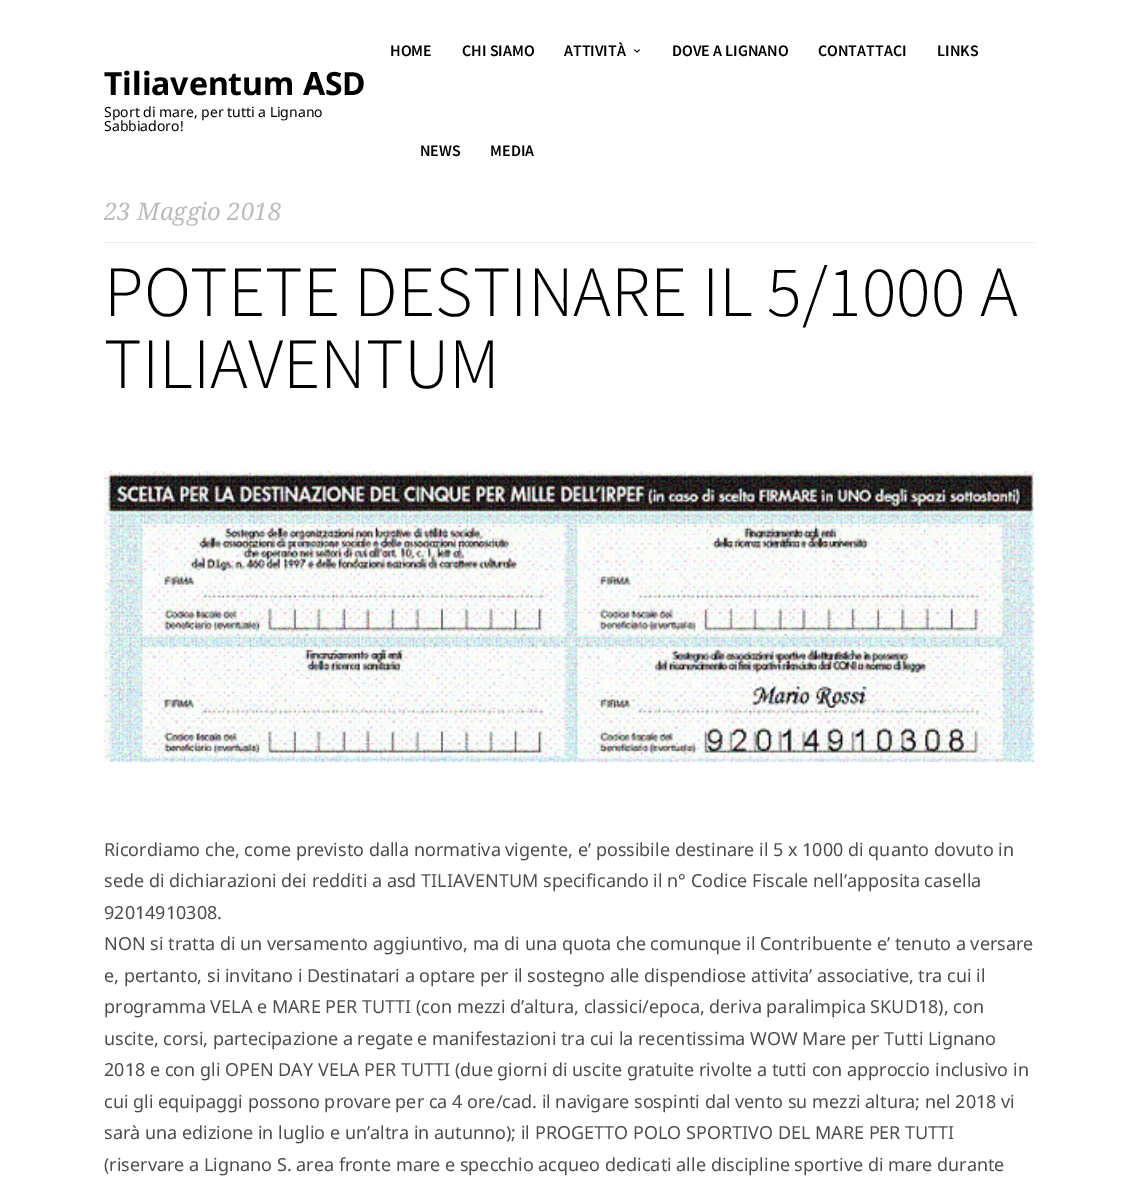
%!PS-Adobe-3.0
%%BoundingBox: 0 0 1138 1183
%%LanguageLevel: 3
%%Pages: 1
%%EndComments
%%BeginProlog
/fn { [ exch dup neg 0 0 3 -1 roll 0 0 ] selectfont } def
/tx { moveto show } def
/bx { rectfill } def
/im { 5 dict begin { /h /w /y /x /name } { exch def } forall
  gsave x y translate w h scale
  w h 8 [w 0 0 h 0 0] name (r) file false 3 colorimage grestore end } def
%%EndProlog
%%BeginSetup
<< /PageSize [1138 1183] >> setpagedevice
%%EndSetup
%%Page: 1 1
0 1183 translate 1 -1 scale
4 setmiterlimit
1 setgray
0 0 1138 1183 bx
/NotoSans-Bold 32 fn
0 setgray
(Tiliaventum ASD) 104 95 tx
/NotoSans-Regular 14 fn
(Sport di mare, per tutti a Lignano) 104 117 tx
(Sabbiadoro!) 104 131 tx
/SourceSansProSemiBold-SemiBold 16 fn
(HOME) 390 56 tx
(CHI SIAMO) 462 56 tx
(ATTIVITÀ) 564 56 tx
(image0.raw) 634 49 6 4 im
(DOVE A LIGNANO) 672 56 tx
(CONTATTACI) 818 56 tx
(LINKS) 937 56 tx
(NEWS) 420 156 tx
(MEDIA) 490 156 tx
0.918 setgray
104 242 930 1 bx
/NotoSerif-Italic 24 fn
0.733 setgray
(23 Maggio 2018) 104 220 tx
/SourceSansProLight-Light 72 fn
0 setgray
(POTETE DESTINARE IL 5/1000 A) 104 316 tx
(TILIAVENTUM) 104 388 tx
(image1.raw) 104 471 930 291 im
/NotoSans-Regular 18 fn
0.302 setgray
(Ricordiamo che, come previsto dalla normativa vigente, e’ possibile destinare il 5 x 1000 di quanto dovuto in) 104 856 tx
(sede di dichiarazioni dei redditi a asd TILIAVENTUM specificando il n° Codice Fiscale nell’apposita casella) 104 887 tx
(92014910308.) 104 919 tx
(NON si tratta di un versamento aggiuntivo, ma di una quota che comunque il Contribuente e’ tenuto a versare) 104 950 tx
(e, pertanto, si invitano i Destinatari a optare per il sostegno alle dispendiose attivita’ associative, tra cui il) 104 982 tx
(programma VELA e MARE PER TUTTI \(con mezzi d’altura, classici/epoca, deriva paralimpica SKUD18\), con) 104 1013 tx
(uscite, corsi, partecipazione a regate e manifestazioni tra cui la recentissima WOW Mare per Tutti Lignano) 104 1045 tx
(2018 e con gli OPEN DAY VELA PER TUTTI \(due giorni di uscite gratuite rivolte a tutti con approccio inclusivo in) 104 1076 tx
(cui gli equipaggi possono provare per ca 4 ore/cad. il navigare sospinti dal vento su mezzi altura; nel 2018 vi) 104 1108 tx
(sarà una edizione in luglio e un’altra in autunno\); il PROGETTO POLO SPORTIVO DEL MARE PER TUTTI) 104 1139 tx
(\(riservare a Lignano S. area fronte mare e specchio acqueo dedicati alle discipline sportive di mare durante) 104 1171 tx
showpage
%%EOF
